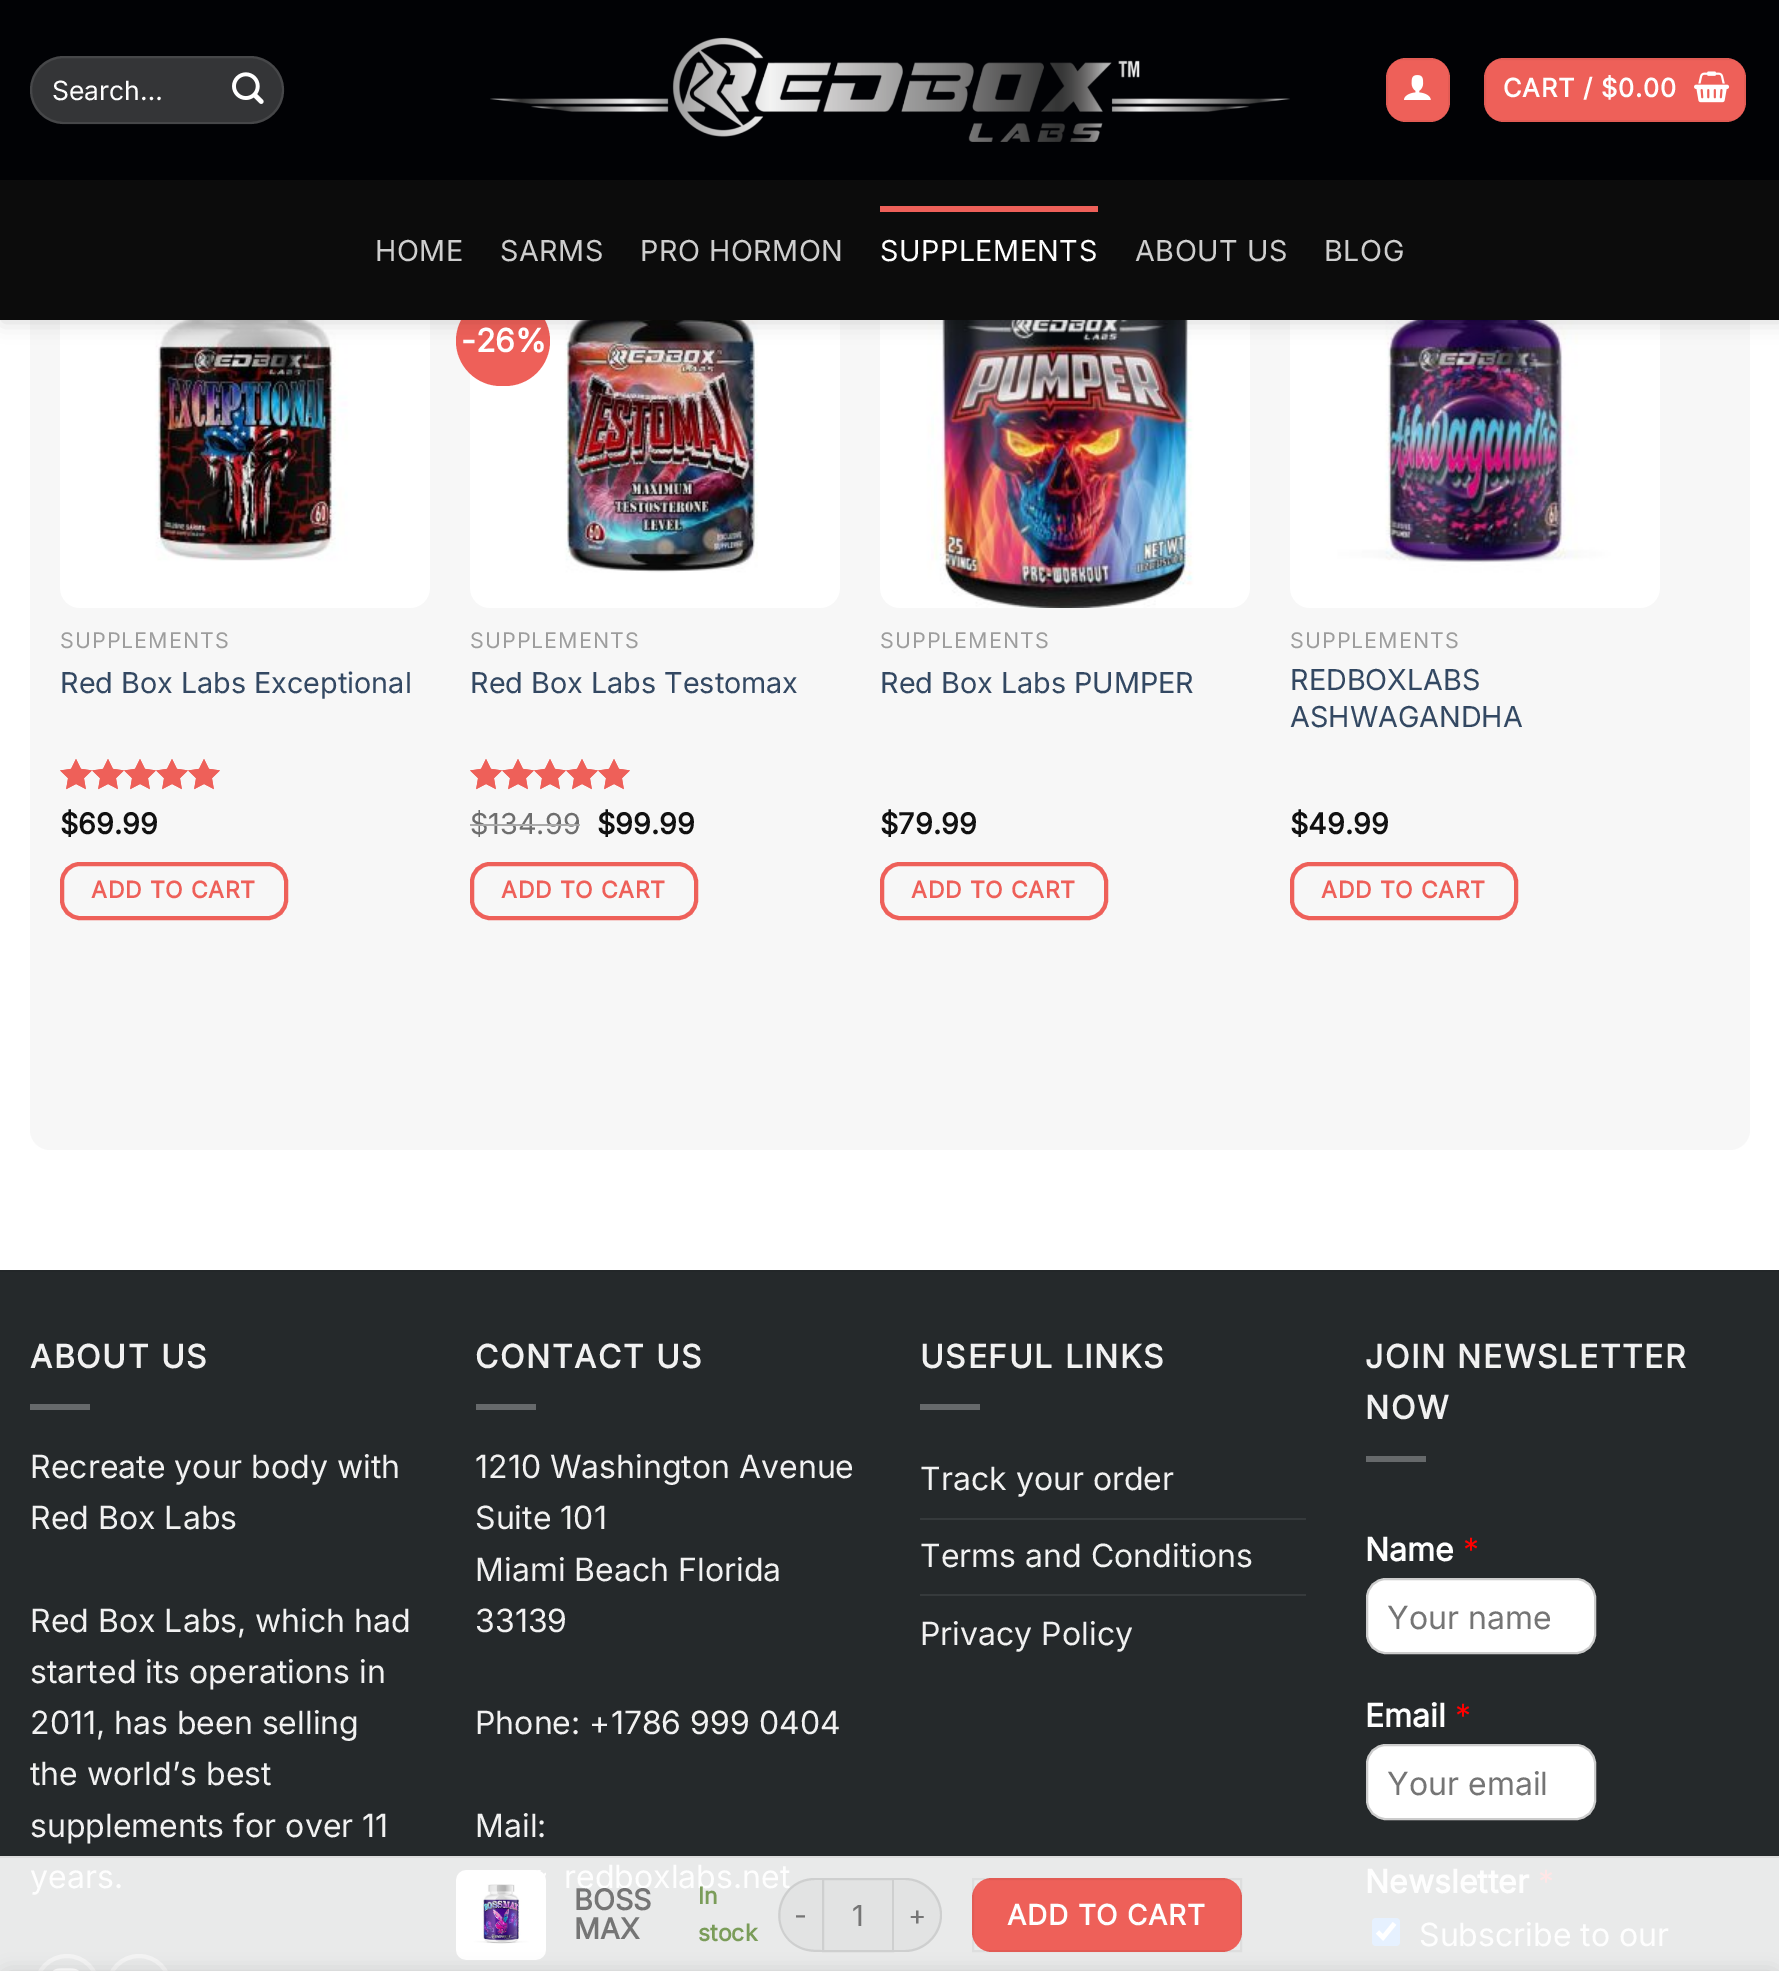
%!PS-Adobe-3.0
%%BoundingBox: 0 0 1779 1971
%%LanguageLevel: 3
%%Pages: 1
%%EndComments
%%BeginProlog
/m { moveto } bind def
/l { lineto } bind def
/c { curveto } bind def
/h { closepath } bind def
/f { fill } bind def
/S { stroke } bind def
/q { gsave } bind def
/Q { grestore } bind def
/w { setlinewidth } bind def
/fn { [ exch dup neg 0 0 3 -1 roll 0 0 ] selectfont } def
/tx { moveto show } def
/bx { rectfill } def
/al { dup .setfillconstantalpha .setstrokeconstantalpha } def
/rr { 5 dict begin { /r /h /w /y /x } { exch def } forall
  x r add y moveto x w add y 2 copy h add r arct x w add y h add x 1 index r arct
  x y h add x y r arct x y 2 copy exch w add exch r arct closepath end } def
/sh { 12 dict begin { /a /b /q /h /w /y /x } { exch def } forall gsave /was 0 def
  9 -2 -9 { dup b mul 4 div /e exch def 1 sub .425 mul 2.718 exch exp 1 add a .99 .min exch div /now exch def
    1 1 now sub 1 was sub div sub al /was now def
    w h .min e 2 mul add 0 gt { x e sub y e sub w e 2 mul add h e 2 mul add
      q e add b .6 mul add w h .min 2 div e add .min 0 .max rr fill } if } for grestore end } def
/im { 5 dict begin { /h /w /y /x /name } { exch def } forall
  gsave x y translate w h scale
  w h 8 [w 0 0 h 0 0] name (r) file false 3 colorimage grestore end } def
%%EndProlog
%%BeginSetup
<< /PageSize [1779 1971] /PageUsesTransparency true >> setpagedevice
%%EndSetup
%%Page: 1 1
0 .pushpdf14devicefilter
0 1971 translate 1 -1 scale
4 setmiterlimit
1 setgray
0 0 1779 1971 bx
0.969 setgray
30 76 1720 1074 20 rr f
(image4.raw) 60 320 370 288 im
(image7.raw) 470 320 370 288 im
0.933 0.376 0.349 setrgbcolor
456 296 94 90 45 rr f
(image8.raw) 880 320 370 288 im
(image9.raw) 1290 320 370 288 im
0 setgray
2 2 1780 320 0 10 0.15 sh
0.004 0.008 0.02 setrgbcolor
0 0 1779 180 bx
0.204 0.208 0.216 setrgbcolor
30 56 254 68 34 rr f
0.09 al
1 setgray
2 w
31 57 252 66 33 rr S
/Inter-Regular 26.5 fn
1 al
0.996 setgray
(Search…) 52 100 tx
(image0.raw) 232 72 32 32 im
(image1.raw) 490 37 800 105 im
0.933 0.376 0.349 setrgbcolor
1386 58 64 64 20 rr f
0.05 al
0 setgray
1387 59 62 62 rectstroke
1 al
(image2.raw) 1404 75 27 25 im
0.933 0.376 0.349 setrgbcolor
1484 58 262 64 20 rr f
0.05 al
0 setgray
1485 59 260 62 rectstroke
/Inter-Bold 25.5 fn
1 al
0.996 setgray
1503 97 m 0.75 0 (CART / $0.00) ashow
(image3.raw) 1694 71 36 32 im
0.047 setgray
0 180 1779 140 bx
/Inter-Regular 28.75 fn
0.808 setgray
375 261 m 0.5 0 (HOME) ashow
500 261 m 0.5 0 (SARMS) ashow
640 261 m 0.5 0 (PRO HORMON) ashow
0.933 0.376 0.349 setrgbcolor
880 206 218 6 bx
0.996 setgray
880 261 m 0.5 0 (SUPPLEMENTS) ashow
0.808 setgray
1135 261 m 0.5 0 (ABOUT US) ashow
1324 261 m 0.5 0 (BLOG) ashow
/Inter-Regular 21.5 fn
0.616 setgray
60 648 m 1 0 (SUPPLEMENTS) ashow
/Inter-Regular 28.75 fn
0.2 0.282 0.384 setrgbcolor
(Red Box Labs Exceptional) 60 693 tx
(image5.raw) 60 759 160 31 im
(image6.raw) 60 759 160 31 im
/Inter-Bold 28.75 fn
0.067 setgray
($69.99) 60 834 tx
0.933 0.376 0.349 setrgbcolor
4 w
62 864 224 54 18 rr S
/Inter-Bold 23 fn
91 898 m 0.75 0 (ADD TO CART) ashow
/Inter-Bold 32 fn
0.996 setgray
(-26%) 461 352 tx
/Inter-Regular 21.5 fn
0.616 setgray
470 648 m 1 0 (SUPPLEMENTS) ashow
/Inter-Regular 28.75 fn
0.2 0.282 0.384 setrgbcolor
(Red Box Labs Testomax) 470 693 tx
(image5.raw) 470 759 160 31 im
(image6.raw) 470 759 160 31 im
0.427 setgray
($134.99) 470 834 tx
0.667 setgray
470 824 110 2 bx
/Inter-Bold 28.75 fn
0.067 setgray
($99.99) 597 834 tx
0.933 0.376 0.349 setrgbcolor
472 864 224 54 18 rr S
/Inter-Bold 23 fn
501 898 m 0.75 0 (ADD TO CART) ashow
/Inter-Regular 21.5 fn
0.616 setgray
880 648 m 1 0 (SUPPLEMENTS) ashow
/Inter-Regular 28.75 fn
0.2 0.282 0.384 setrgbcolor
(Red Box Labs PUMPER) 880 693 tx
/Inter-Bold 28.75 fn
0.067 setgray
($79.99) 880 834 tx
0.933 0.376 0.349 setrgbcolor
882 864 224 54 18 rr S
/Inter-Bold 23 fn
911 898 m 0.75 0 (ADD TO CART) ashow
/Inter-Regular 21.5 fn
0.616 setgray
1290 648 m 1 0 (SUPPLEMENTS) ashow
/Inter-Regular 28.75 fn
0.2 0.282 0.384 setrgbcolor
(REDBOXLABS) 1290 690 tx
(ASHWAGANDHA) 1290 727 tx
/Inter-Bold 28.75 fn
0.067 setgray
($49.99) 1290 834 tx
0.933 0.376 0.349 setrgbcolor
1292 864 224 54 18 rr S
/Inter-Bold 23 fn
1321 898 m 0.75 0 (ADD TO CART) ashow
0.145 0.161 0.169 setrgbcolor
0 1272 1779 584 bx
0.914 0.918 0.918 setrgbcolor
0 1858 1779 113 bx
0.137 0.153 0.161 setrgbcolor
0 1270 1779 2 bx
/Inter-Bold 32 fn
0.945 setgray
30 1368 m 1.6 0 (ABOUT US) ashow
0.4 0.412 0.42 setrgbcolor
30 1404 60 6 bx
/Inter-Regular 32 fn
0.945 setgray
(Recreate your body with) 30 1478 tx
(Red Box Labs) 30 1529 tx
(Red Box Labs, which had) 30 1632 tx
(started its operations in) 30 1683 tx
(2011, has been selling) 30 1734 tx
(the world’s best) 30 1785 tx
(supplements for over 11) 30 1837 tx
0.996 setgray
(years.) 30 1888 tx
0.957 setgray
36 1956 62 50 31 rr S
(image10.raw) 52 1968 27 3 im
108 1956 62 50 31 rr S
/Inter-Bold 32 fn
0.945 setgray
475 1368 m 1.6 0 (CONTACT US) ashow
0.4 0.412 0.42 setrgbcolor
476 1404 60 6 bx
/Inter-Regular 32 fn
0.945 setgray
(1210 Washington Avenue) 475 1478 tx
(Suite 101) 475 1529 tx
(Miami Beach Florida) 475 1581 tx
(33139) 475 1632 tx
(Phone: +1786 999 0404) 475 1734 tx
(Mail:) 475 1837 tx
0.996 setgray
(redboxlabs.net) 564 1888 tx
/Inter-Bold 32 fn
0.945 setgray
920 1368 m 1.6 0 (USEFUL LINKS) ashow
0.4 0.412 0.42 setrgbcolor
920 1404 60 6 bx
/Inter-Regular 32 fn
0.945 setgray
(Track your order) 920 1490 tx
0.212 0.227 0.235 setrgbcolor
920 1518 386 2 bx
0.945 setgray
(Terms and Conditions) 920 1567 tx
0.212 0.227 0.235 setrgbcolor
920 1594 386 2 bx
0.945 setgray
(Privacy Policy) 920 1645 tx
/Inter-Bold 32 fn
1365 1368 m 1.6 0 (JOIN NEWSLETTER) ashow
1365 1419 m 1.6 0 (NOW) ashow
0.4 0.412 0.42 setrgbcolor
1366 1456 60 6 bx
0.996 setgray
(Name) 1365 1561 tx
/Inter-Regular 32 fn
1 0 0 setrgbcolor
(*) 1463 1561 tx
1 setgray
1367 1579 228 74 19 rr q f Q
0.8 setgray
2 w
S
0.459 setgray
(Your name) 1387 1629 tx
/Inter-Bold 32 fn
0.996 setgray
(Email) 1365 1727 tx
/Inter-Regular 32 fn
1 0 0 setrgbcolor
(*) 1455 1727 tx
1 setgray
1367 1745 228 74 19 rr q f Q
0.8 setgray
S
0.459 setgray
(Your email) 1387 1795 tx
/Inter-Bold 32 fn
0.996 setgray
(Newsletter) 1365 1893 tx
/Inter-Regular 32 fn
1 0.902 0.902 setrgbcolor
(*) 1538 1893 tx
0.902 0.945 1 setrgbcolor
1372 1918 28 28 4 rr f
1 setgray
4.5 w
1377.5 1932 m 1383 1937.5 l 1394.5 1923.5 l S
0.996 setgray
(Subscribe to our) 1419 1946 tx
0.867 setgray
0 1856 1779 2 bx
(image11.raw) 456 1870 90 90 im
/Inter-Bold 28.75 fn
0.459 setgray
(BOSS) 574 1910 tx
(MAX) 574 1939 tx
/Inter-Bold 23 fn
0.478 0.612 0.349 setrgbcolor
(In) 698 1904 tx
(stock) 698 1941 tx
0.886 0.89 0.89 setrgbcolor
815 1878 m 822 1878 l 822 1952 l 815 1952 l 794.5 1952 778 1935.5 778 1915 c 778 1894.5 794.5 1878 815 1878 c h f
0.09 al
0 setgray
815 1878 m 822 1878 l 822 1952 l 815 1952 808 1952 801 1949 c 764 1934 775 1878 815 1878 c h 815 1880 m 822 1880 l 822 1950 l 815 1950 808 1950 801 1947 c 767 1933 777 1880 815 1880 c h eofill
/Inter-Regular 28 fn
1 al
0.459 setgray
794 1925 m 0.75 0 (-) ashow
0.886 0.89 0.89 setrgbcolor
823 1879 m 893 1879 l 893 1951 l 823 1951 l h q f Q
0.808 0.812 0.812 setrgbcolor
2 w
S
/Inter-Regular 28.75 fn
0.459 setgray
(1) 852 1926 tx
0.886 0.89 0.89 setrgbcolor
894 1878 m 905 1878 l 925.5 1878 942 1894.5 942 1915 c 942 1935.5 925.5 1952 905 1952 c 894 1952 l h f
0.09 al
0 setgray
894 1878 m 905 1878 l 925 1878 942 1895 942 1915 c 942 1935 925 1952 905 1952 c 894 1952 l h 894 1880 m 905 1880 l 924 1880 940 1896 940 1915 c 940 1934 924 1950 905 1950 c 894 1950 l h eofill
/Inter-Regular 28 fn
1 al
0.459 setgray
908 1925 m 0.75 0 (+) ashow
0.933 0.376 0.349 setrgbcolor
972 1878 270 74 20 rr f
0.05 al
0 setgray
973 1879 268 72 rectstroke
/Inter-Bold 28 fn
1 al
0.996 setgray
1007 1925 m 0.75 0 (ADD TO CART) ashow
0 setgray
0 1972 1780 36 10 9 0.14 sh
.poppdf14devicefilter showpage
%%EOF
